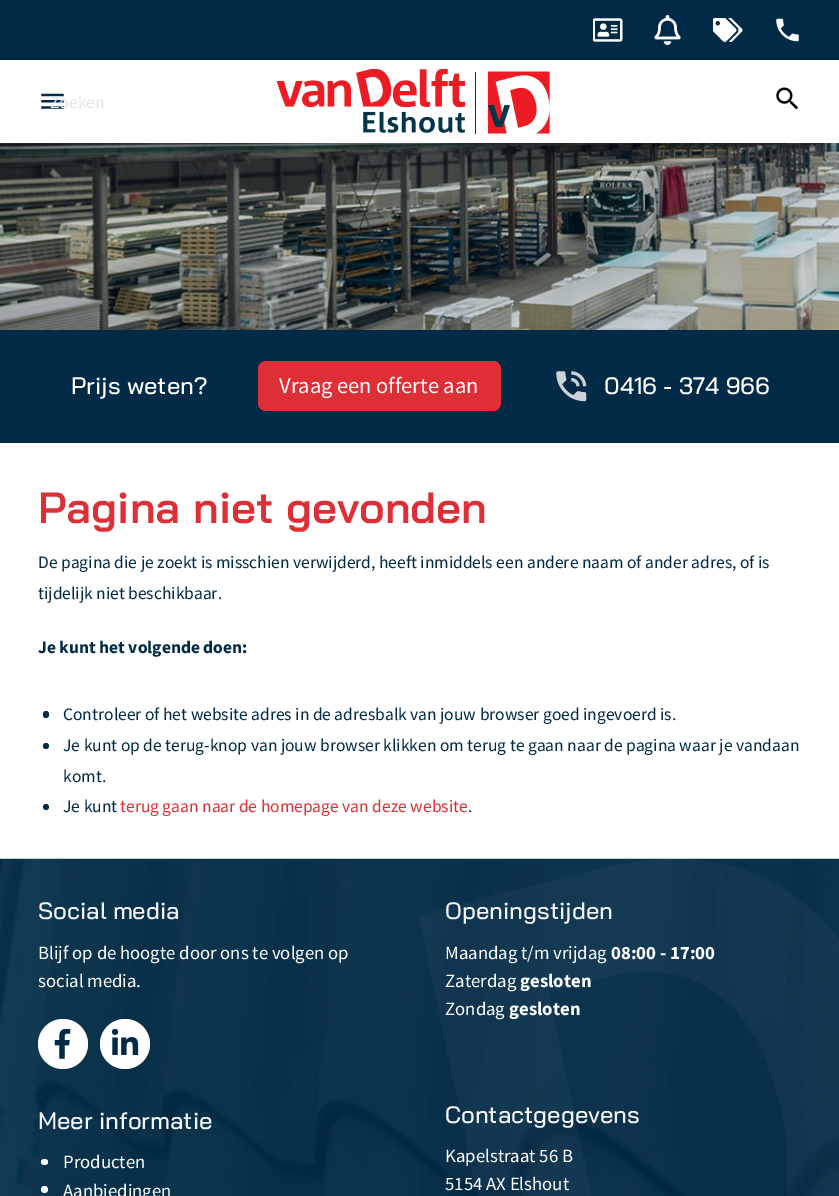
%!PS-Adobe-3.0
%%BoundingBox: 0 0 839 1196
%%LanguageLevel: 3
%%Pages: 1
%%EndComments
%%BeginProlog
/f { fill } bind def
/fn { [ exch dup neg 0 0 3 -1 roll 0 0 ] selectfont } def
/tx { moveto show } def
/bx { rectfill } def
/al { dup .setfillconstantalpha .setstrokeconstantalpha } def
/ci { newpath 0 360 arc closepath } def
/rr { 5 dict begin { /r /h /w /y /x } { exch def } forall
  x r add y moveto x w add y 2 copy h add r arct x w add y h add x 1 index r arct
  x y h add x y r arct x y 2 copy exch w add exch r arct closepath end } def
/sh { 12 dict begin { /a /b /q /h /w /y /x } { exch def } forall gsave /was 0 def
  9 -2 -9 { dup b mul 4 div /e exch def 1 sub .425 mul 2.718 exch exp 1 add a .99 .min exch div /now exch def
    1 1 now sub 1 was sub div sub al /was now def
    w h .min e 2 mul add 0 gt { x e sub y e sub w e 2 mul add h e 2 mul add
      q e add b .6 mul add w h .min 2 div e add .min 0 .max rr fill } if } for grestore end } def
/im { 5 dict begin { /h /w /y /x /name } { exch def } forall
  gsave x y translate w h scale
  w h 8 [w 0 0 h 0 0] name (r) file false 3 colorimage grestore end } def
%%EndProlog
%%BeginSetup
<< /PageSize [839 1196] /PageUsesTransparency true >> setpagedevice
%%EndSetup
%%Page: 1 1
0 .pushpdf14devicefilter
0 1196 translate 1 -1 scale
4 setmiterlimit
1 setgray
0 0 839 1196 bx
0 0.165 0.275 setrgbcolor
0 0 839 60 bx
(image0.raw) 593 18 30 24 im
(image1.raw) 654 15 27 30 im
(image2.raw) 713 18 30 24 im
(image3.raw) 776 18 23 24 im
(image7.raw) 0 143 839 187 im
0 setgray
0 61 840 83 0 5 0.3 sh
1 setgray
0 60 839 83 bx
(image4.raw) 41 93 23 16 im
(image5.raw) 276 69 274 65 im
/SourceSansPro-Regular 17.5 fn
0.882 0.902 0.914 setrgbcolor
(Zoeken) 50 108 tx
(image6.raw) 776 87 22 23 im
0 0.165 0.275 setrgbcolor
0 330 839 113 bx
/BaiJamjuree-Medium 23.75 fn
1 setgray
(Prijs weten?) 71 394 tx
0.867 0.184 0.208 setrgbcolor
258 361 243 50 8 rr f
/SourceSansPro-Regular 22.5 fn
1 setgray
(Vraag een offerte aan) 279 393 tx
(image8.raw) 556 371 31 31 im
/BaiJamjuree-Medium 23.75 fn
(0416 - 374 966) 604 394 tx
/BaiJamjuree-SemiBold 43.75 fn
0.867 0.184 0.208 setrgbcolor
(Pagina niet gevonden) 38 523 tx
/SourceSansPro-Regular 17.5 fn
0 0.165 0.275 setrgbcolor
(De pagina die je zoekt is misschien verwijderd, heeft inmiddels een andere naam of ander adres, of is) 38 568 tx
(tijdelijk niet beschikbaar.) 38 599 tx
/SourceSansPro-Bold 17.5 fn
(Je kunt het volgende doen:) 38 653 tx
43 711 6 7 3 rr f
/SourceSansPro-Regular 17.5 fn
(Controleer of het website adres in de adresbalk van jouw browser goed ingevoerd is.) 63 720 tx
46 746 3 ci f
(Je kunt op de terug-knop van jouw browser klikken om terug te gaan naar de pagina waar je vandaan) 63 751 tx
(komt.) 63 782 tx
46 807 3 ci f
(Je kunt) 63 812 tx
0.867 0.184 0.208 setrgbcolor
(terug gaan naar de homepage van deze website) 120 812 tx
0 0.165 0.275 setrgbcolor
(.) 468 812 tx
(image9.raw) 0 858 839 338 im
/BaiJamjuree-Medium 23.75 fn
0.961 0.969 0.98 setrgbcolor
(Social media) 38 919 tx
/SourceSansPro-Regular 18.75 fn
1 setgray
(Blijf op de hoogte door ons te volgen op) 38 959 tx
(social media.) 38 987 tx
63 1044 25 ci f
(image10.raw) 54 1029 17 30 im
125 1044 25 ci f
(image11.raw) 111 1029 28 26 im
/BaiJamjuree-Medium 23.75 fn
0.961 0.969 0.98 setrgbcolor
(Openingstijden) 445 919 tx
/SourceSansPro-Regular 18.75 fn
1 setgray
(Maandag t/m vrijdag) 445 959 tx
/SourceSansPro-Bold 18.75 fn
(08:00 - 17:00) 611 959 tx
/SourceSansPro-Regular 18.75 fn
(Zaterdag) 445 987 tx
/SourceSansPro-Bold 18.75 fn
(gesloten) 520 987 tx
/SourceSansPro-Regular 18.75 fn
(Zondag) 445 1015 tx
/SourceSansPro-Bold 18.75 fn
(gesloten) 509 1015 tx
/BaiJamjuree-Medium 23.75 fn
0.961 0.969 0.98 setrgbcolor
(Meer informatie) 38 1129 tx
1 setgray
41 1159 7 6 3 rr f
/SourceSansPro-Regular 18.75 fn
(Producten) 63 1168 tx
44.5 1189.5 3.5 ci f
(Aanbiedingen) 63 1197 tx
/BaiJamjuree-Medium 23.75 fn
0.961 0.969 0.98 setrgbcolor
(Contactgegevens) 445 1123 tx
/SourceSansPro-Regular 18.75 fn
1 setgray
(Kapelstraat 56 B) 445 1162 tx
(5154 AX Elshout) 445 1190 tx
.poppdf14devicefilter showpage
%%EOF
